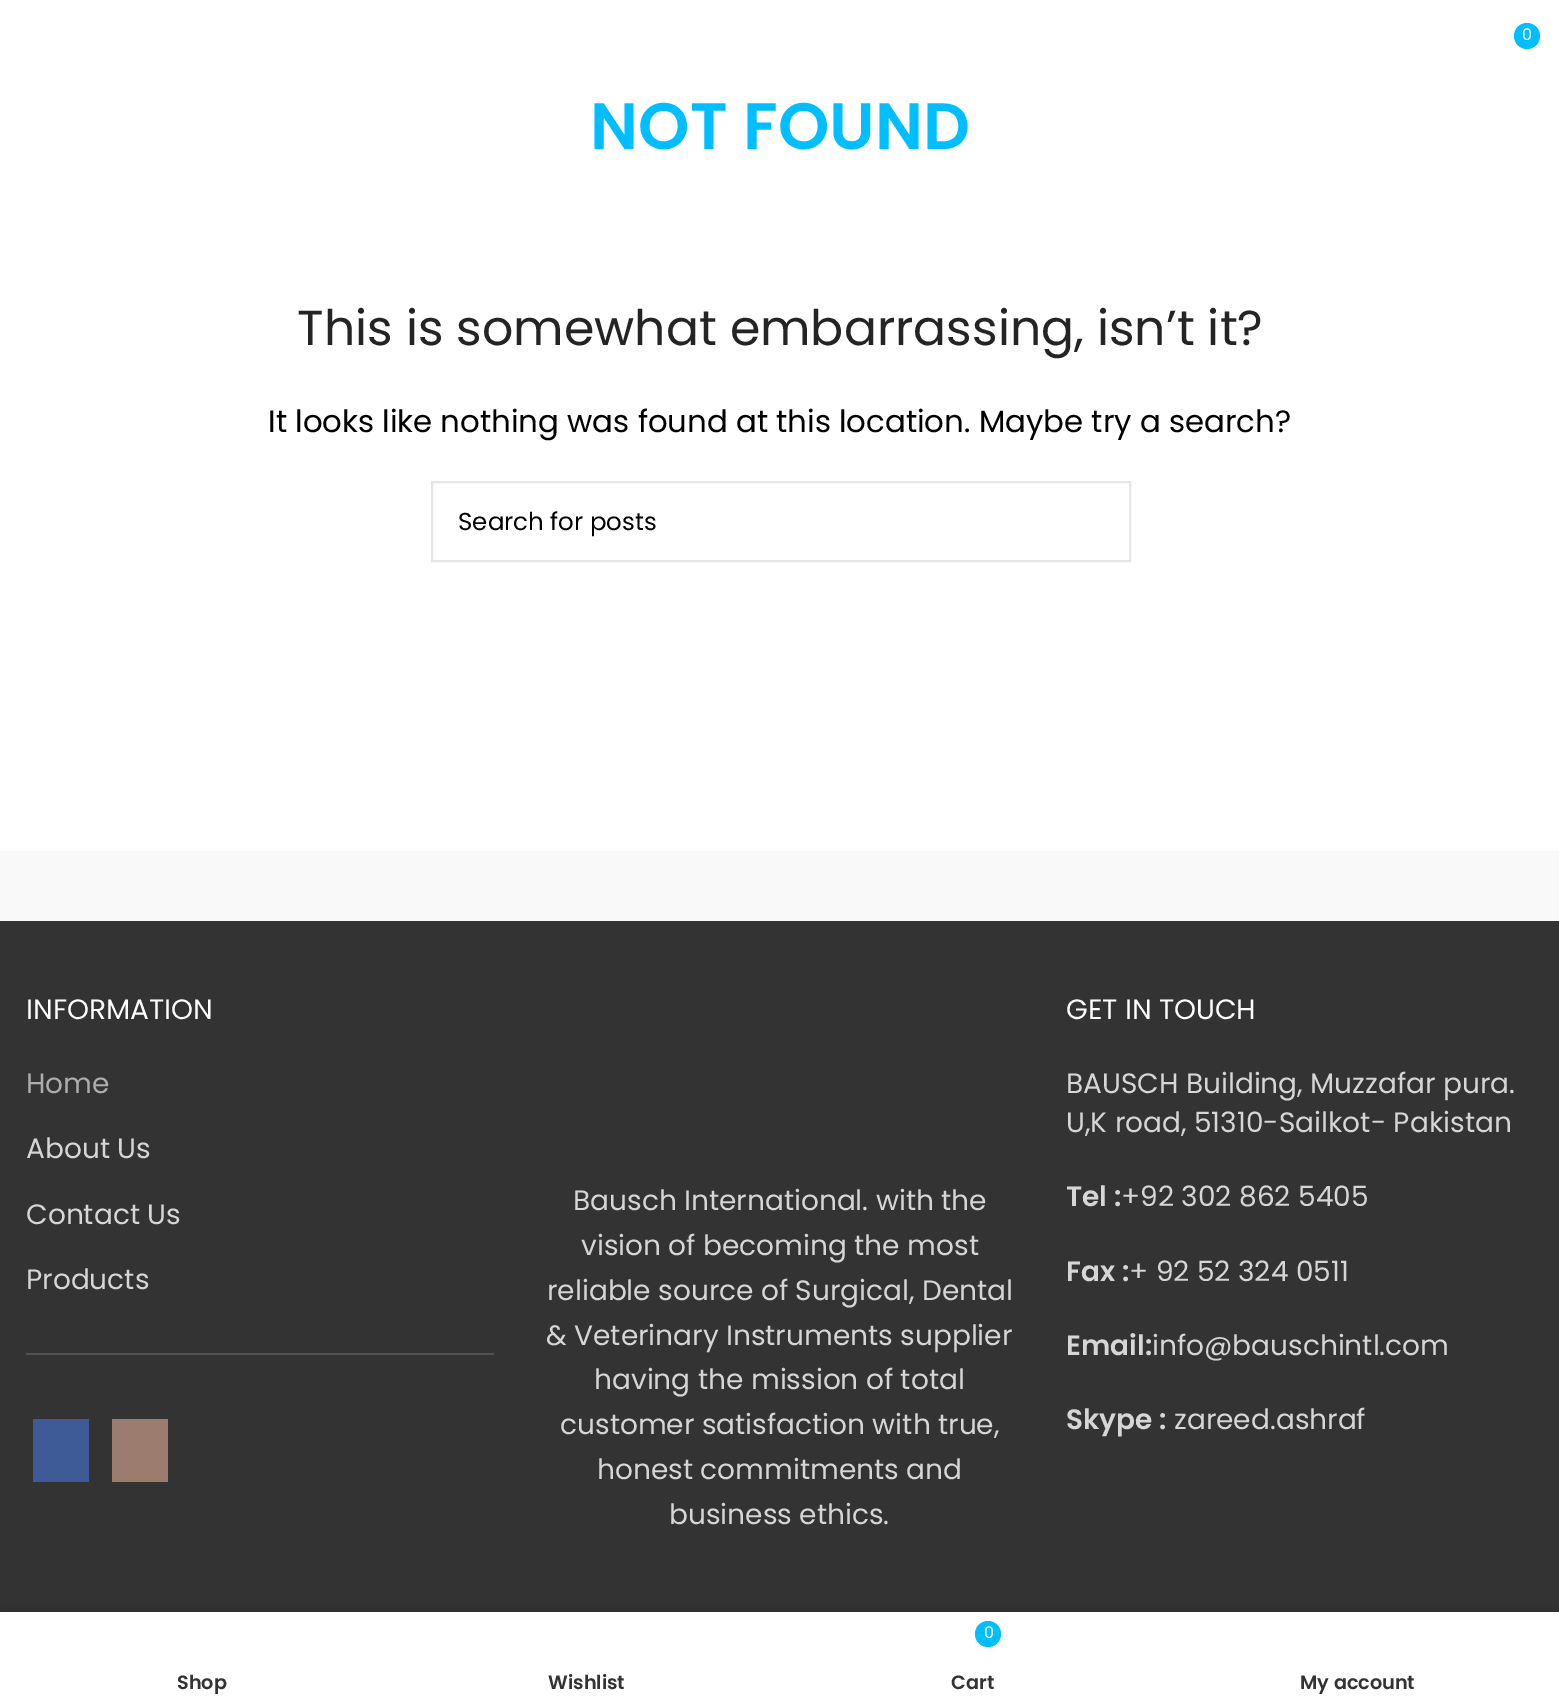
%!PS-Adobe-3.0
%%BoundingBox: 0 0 1559 1708
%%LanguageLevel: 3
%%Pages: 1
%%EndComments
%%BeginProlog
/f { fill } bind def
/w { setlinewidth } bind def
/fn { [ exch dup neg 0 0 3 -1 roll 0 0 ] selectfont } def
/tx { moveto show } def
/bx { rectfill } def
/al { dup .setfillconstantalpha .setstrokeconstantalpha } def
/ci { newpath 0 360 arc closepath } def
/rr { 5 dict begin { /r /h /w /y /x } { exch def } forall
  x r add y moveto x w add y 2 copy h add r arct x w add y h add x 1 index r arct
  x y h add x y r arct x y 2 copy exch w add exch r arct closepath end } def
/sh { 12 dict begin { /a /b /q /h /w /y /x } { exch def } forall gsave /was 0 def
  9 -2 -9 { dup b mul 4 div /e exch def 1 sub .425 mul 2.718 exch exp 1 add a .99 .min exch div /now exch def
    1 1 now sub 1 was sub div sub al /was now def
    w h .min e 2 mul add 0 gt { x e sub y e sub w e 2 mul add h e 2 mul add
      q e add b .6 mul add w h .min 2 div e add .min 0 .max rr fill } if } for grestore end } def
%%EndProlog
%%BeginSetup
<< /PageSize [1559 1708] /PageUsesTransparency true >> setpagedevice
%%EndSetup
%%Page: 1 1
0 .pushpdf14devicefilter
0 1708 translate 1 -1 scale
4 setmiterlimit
1 setgray
0 0 1559 1708 bx
0 0.745 1 setrgbcolor
1527 36 13 ci f
/Poppins-Regular 16 fn
1 setgray
(0) 1522 40 tx
/Poppins-SemiBold 65.5 fn
0 0.745 1 setrgbcolor
(NOT FOUND) 590 149 tx
/Poppins-Regular 49 fn
0.141 setgray
(This is somewhat embarrassing, isn’t it?) 297 345 tx
/Poppins-Regular 30.8 fn
0 setgray
(It looks like nothing was found at this location. Maybe try a search?) 268 432 tx
0.902 setgray
2 w
432 482 698 79 rectstroke
/Poppins-Regular 24.5 fn
0 setgray
(Search for posts) 458 530 tx
0.976 setgray
0 851 1559 70 bx
0.2 setgray
0 921 1559 691 bx
0.322 setgray
26 1353 468 2 bx
/Poppins-Regular 28 fn
1 setgray
(INFORMATION) 26 1019 tx
0.678 setgray
(Home) 26 1093 tx
0.839 setgray
(About Us) 26 1158 tx
(Contact Us) 26 1224 tx
(Products) 26 1289 tx
0.243 0.357 0.596 setrgbcolor
33 1419 56 63 bx
0.612 0.486 0.431 setrgbcolor
112 1419 56 63 bx
0.839 setgray
(Bausch International. with the) 573 1210 tx
(vision of becoming the most) 581 1255 tx
(reliable source of Surgical, Dental) 547 1300 tx
(& Veterinary Instruments supplier) 546 1345 tx
(having the mission of total) 594 1389 tx
(customer satisfaction with true,) 560 1434 tx
(honest commitments and) 597 1479 tx
(business ethics.) 669 1524 tx
1 setgray
(GET IN TOUCH) 1066 1019 tx
0.839 setgray
(BAUSCH Building, Muzzafar pura.) 1066 1093 tx
(U,K road, 51310-Sailkot- Pakistan) 1066 1132 tx
/Poppins-SemiBold 28 fn
(Tel :) 1066 1206 tx
/Poppins-Regular 28 fn
(+92 302 862 5405) 1121 1206 tx
/Poppins-SemiBold 28 fn
(Fax :) 1066 1281 tx
/Poppins-Regular 28 fn
(+ 92 52 324 0511) 1129 1281 tx
/Poppins-SemiBold 28 fn
(Email:) 1066 1355 tx
/Poppins-Regular 28 fn
(info@bauschintl.com) 1152 1355 tx
/Poppins-SemiBold 28 fn
(Skype :) 1066 1429 tx
/Poppins-Regular 28 fn
(zareed.ashraf) 1174 1429 tx
0 setgray
0 1612 1559 96 0 8 0.12 sh
1 setgray
0 1612 1559 96 bx
/Poppins-SemiBold 19.25 fn
0.2 setgray
(Shop) 177 1689 tx
(Wishlist) 548 1689 tx
0 0.745 1 setrgbcolor
988 1634 13 ci f
/Poppins-Regular 16 fn
1 setgray
(0) 984 1638 tx
/Poppins-SemiBold 19.25 fn
0.2 setgray
(Cart) 951 1689 tx
(My account) 1300 1689 tx
.poppdf14devicefilter showpage
%%EOF
